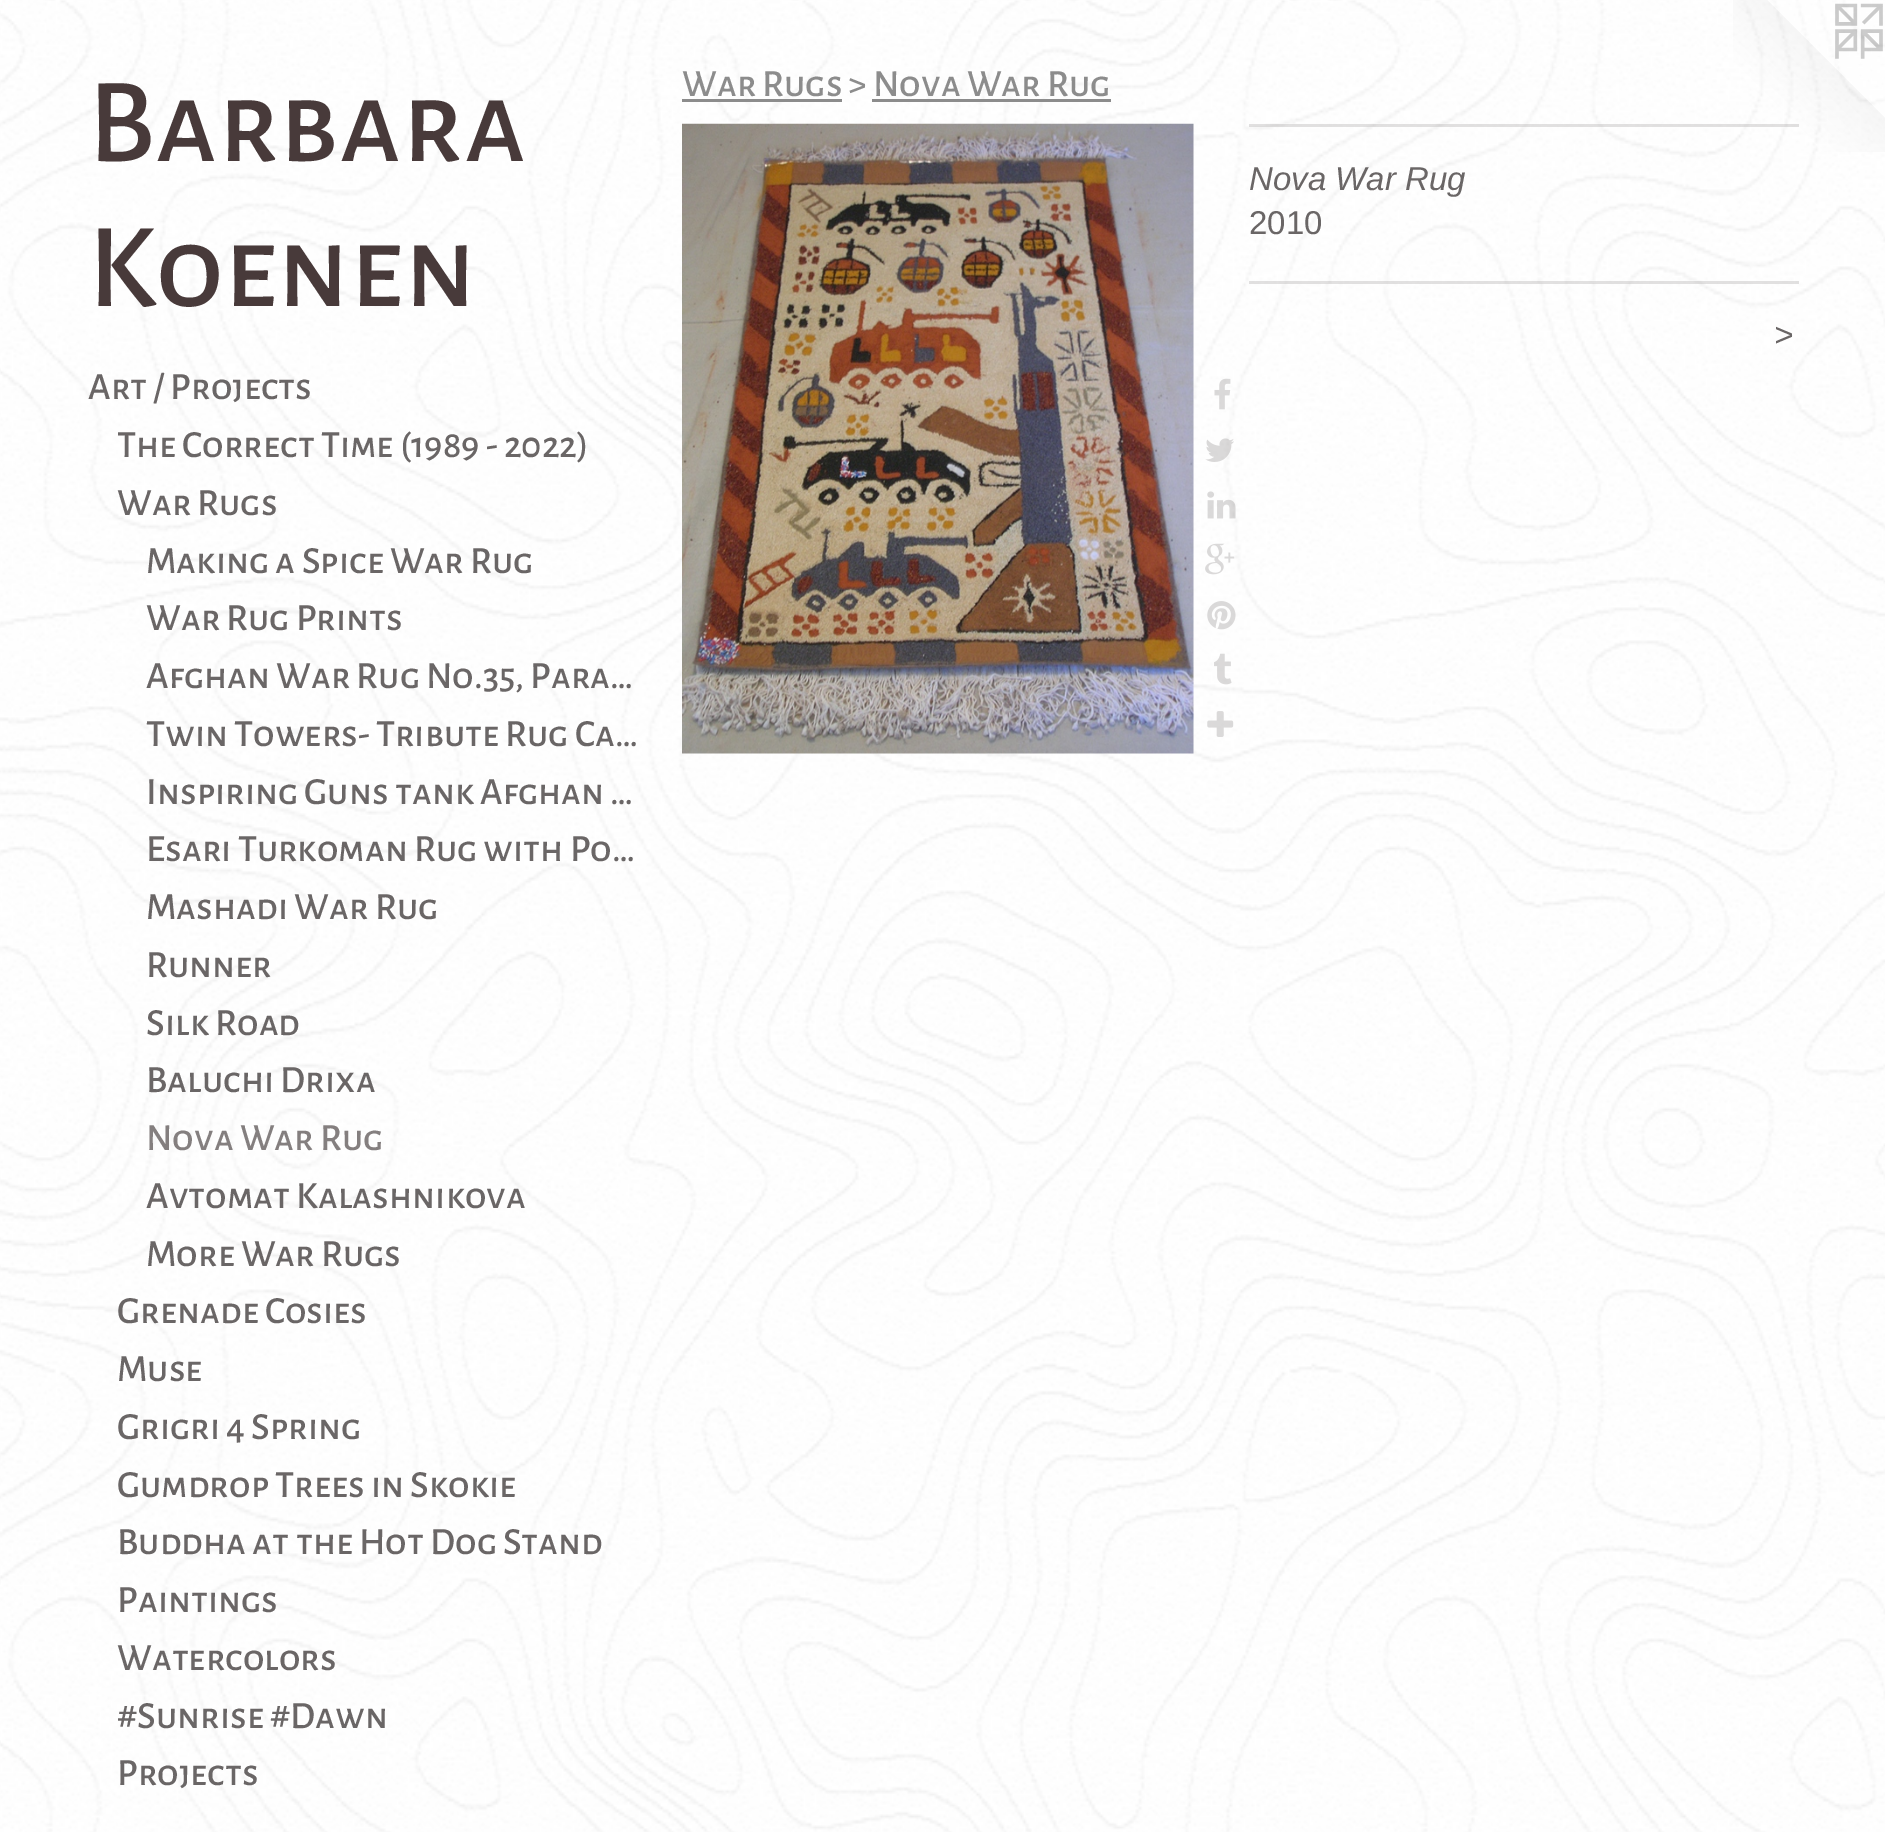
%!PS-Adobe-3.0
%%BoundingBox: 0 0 1885 1832
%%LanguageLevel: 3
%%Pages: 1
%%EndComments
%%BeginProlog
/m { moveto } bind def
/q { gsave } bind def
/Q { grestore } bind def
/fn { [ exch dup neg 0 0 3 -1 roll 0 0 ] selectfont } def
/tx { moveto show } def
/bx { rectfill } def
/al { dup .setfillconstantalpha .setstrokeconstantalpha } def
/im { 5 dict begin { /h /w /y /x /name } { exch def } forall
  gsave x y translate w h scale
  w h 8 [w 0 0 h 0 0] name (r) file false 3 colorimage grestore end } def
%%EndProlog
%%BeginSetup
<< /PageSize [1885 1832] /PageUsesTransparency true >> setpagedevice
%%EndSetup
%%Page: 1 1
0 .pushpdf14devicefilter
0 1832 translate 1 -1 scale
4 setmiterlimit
1 setgray
0 0 1885 1832 bx
(image0.raw) 0 0 1885 1832 im
/AlegreyaSansSC-Medium 121 fn
0.282 0.227 0.227 setrgbcolor
(Barbara) 88 161 tx
(Koenen) 88 306 tx
/AlegreyaSansSC-Medium 38.5 fn
0.416 0.4 0.4 setrgbcolor
(Art / Projects) 88 399 tx
q
118 418 520 58 rectclip
(The Correct Time \(1989 - 2022\)) 117 457 tx
Q
(War Rugs) 117 515 tx
(Making a Spice War Rug) 146 573 tx
(War Rug Prints) 146 630 tx
(Afghan War Rug No.35, Para…) 146 688 tx
(Twin Towers- Tribute Rug Ca…) 146 746 tx
(Inspiring Guns tank Afghan …) 146 804 tx
(Esari Turkoman Rug with Po…) 146 861 tx
(Mashadi War Rug) 146 919 tx
(Runner) 146 977 tx
(Silk Road) 146 1035 tx
(Baluchi Drixa) 146 1092 tx
0.518 0.498 0.498 setrgbcolor
(Nova War Rug) 146 1150 tx
0.416 0.4 0.4 setrgbcolor
(Avtomat Kalashnikova) 146 1208 tx
(More War Rugs) 146 1266 tx
(Grenade Cosies) 117 1323 tx
(Muse) 117 1381 tx
(Grigri 4 Spring) 117 1439 tx
(Gumdrop Trees in Skokie) 117 1497 tx
(Buddha at the Hot Dog Stand) 117 1554 tx
(Paintings) 117 1612 tx
(Watercolors) 117 1670 tx
q
118 1689 520 57 rectclip
(#Sunrise #Dawn) 117 1728 tx
Q
(Projects) 117 1785 tx
0.549 setgray
(War Rugs > Nova War Rug) 682 96 tx
682 99 160 3 bx
872 99 239 3 bx
(image1.raw) 682 123 512 631 im
(image2.raw) 1214 378 17 32 im
(image3.raw) 1205 438 29 24 im
(image4.raw) 1207 491 29 28 im
(image5.raw) 1205 543 30 32 im
(image6.raw) 1207 601 29 29 im
(image7.raw) 1214 653 18 32 im
(image8.raw) 1207 711 27 26 im
(image9.raw) 1733 0 152 152 im
0.2 al
0.431 0.412 0.412 setrgbcolor
1249 124 550 3 bx
/LiberationSans-Italic 33 fn
1 al
0.416 0.4 0.4 setrgbcolor
(Nova War Rug) 1249 190 tx
/LiberationSans-Regular 33 fn
(2010) 1249 234 tx
0.2 al
0.431 0.412 0.412 setrgbcolor
1249 281 550 3 bx
/LiberationSans-Italic 33 fn
1 al
0.416 0.4 0.4 setrgbcolor
1774 346 m 3 0 (>) ashow
.poppdf14devicefilter showpage
%%EOF
